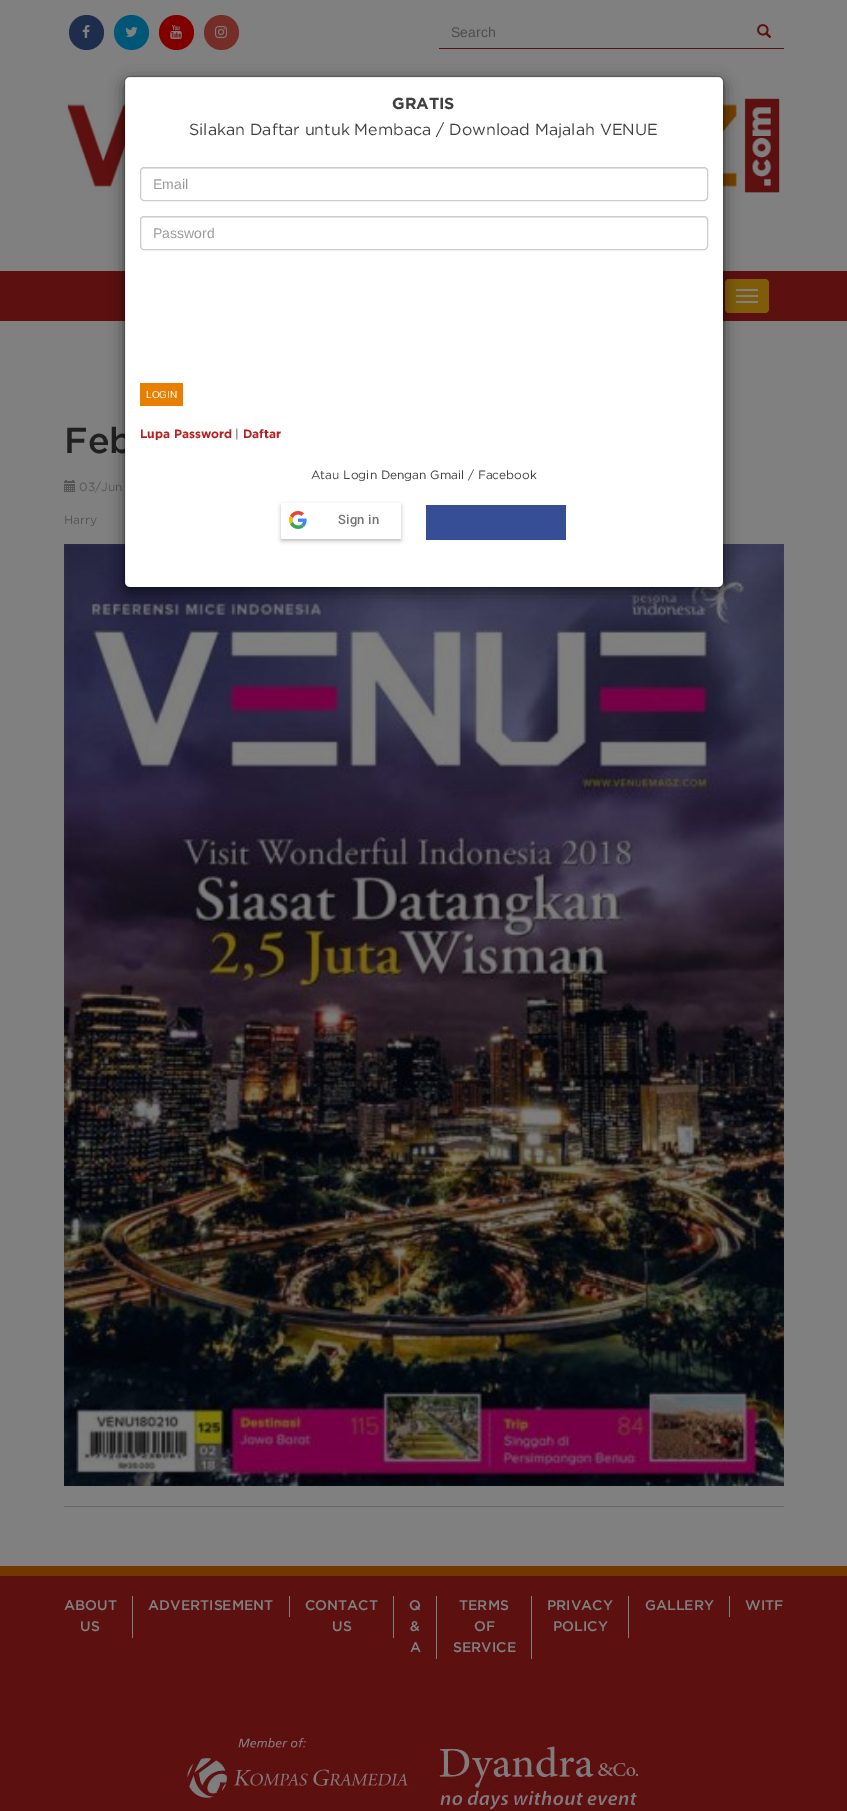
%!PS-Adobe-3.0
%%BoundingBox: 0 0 847 1811
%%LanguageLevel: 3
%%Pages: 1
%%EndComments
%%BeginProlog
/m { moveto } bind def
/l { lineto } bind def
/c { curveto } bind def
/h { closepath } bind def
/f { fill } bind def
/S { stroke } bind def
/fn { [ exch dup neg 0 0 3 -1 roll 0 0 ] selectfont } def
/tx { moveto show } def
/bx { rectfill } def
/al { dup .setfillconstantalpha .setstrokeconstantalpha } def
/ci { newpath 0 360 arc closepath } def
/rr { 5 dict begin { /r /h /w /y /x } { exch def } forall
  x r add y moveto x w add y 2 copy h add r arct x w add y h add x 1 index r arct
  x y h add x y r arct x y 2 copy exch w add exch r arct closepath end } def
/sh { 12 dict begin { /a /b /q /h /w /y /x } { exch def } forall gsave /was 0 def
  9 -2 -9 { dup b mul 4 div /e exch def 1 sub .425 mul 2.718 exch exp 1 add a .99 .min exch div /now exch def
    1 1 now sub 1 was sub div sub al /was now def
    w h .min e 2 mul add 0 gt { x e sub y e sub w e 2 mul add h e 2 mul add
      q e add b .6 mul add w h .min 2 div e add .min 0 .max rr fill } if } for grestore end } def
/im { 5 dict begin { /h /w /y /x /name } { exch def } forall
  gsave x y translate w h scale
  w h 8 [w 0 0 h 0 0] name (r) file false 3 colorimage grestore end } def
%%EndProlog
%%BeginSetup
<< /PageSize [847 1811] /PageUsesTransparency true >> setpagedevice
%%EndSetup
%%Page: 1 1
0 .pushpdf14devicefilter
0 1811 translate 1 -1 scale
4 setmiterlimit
0.502 setgray
0 0 847 1811 bx
0.118 0.176 0.298 setrgbcolor
86.5 32.5 17.5 ci f
(image0.raw) 82 25 8 13 im
0 0.337 0.467 setrgbcolor
131.5 32.5 17.5 ci f
(image1.raw) 125 27 13 10 im
0.502 0 0 setrgbcolor
176.5 32.5 17.5 ci f
(image2.raw) 170 25 12 14 im
0.459 0.176 0.157 setrgbcolor
221.5 32.5 17.5 ci f
(image3.raw) 215 26 12 12 im
0.361 0.063 0.063 setrgbcolor
439 48 345 1 bx
(image4.raw) 757 24 15 14 im
/LiberationSans-Regular 14 fn
0.302 setgray
(Search) 451 37 tx
(image5.raw) 67 94 713 135 im
0.361 0.063 0.063 setrgbcolor
0 271 847 50 bx
0.494 0.361 0.039 setrgbcolor
725 279 44 34 4 rr f
0.502 setgray
736 289 22 2 1 rr f
736 295 22 2 1 rr f
736 301 22 2 1 rr f
/Gotham-Medium 36 fn
0.125 setgray
(Feb) 64 453 tx
(image6.raw) 64 480 11 12 im
/Gotham-Regular 12 fn
0.333 setgray
(03/Jun) 79 491 tx
(image8.raw) 64 544 720 942 im
0 setgray
124 81 600 512 6 7.5 0.5 sh
1 setgray
125 77 598 510 5 rr f
0.2 al
0 setgray
124.5 76.5 599 511 5.5 rr S
/Gotham-Bold 16 fn
1 al
0.251 setgray
(GRATIS) 392 109 tx
/Gotham-Regular 16 fn
(Silakan Daftar untuk Membaca / Download Majalah VENUE) 189 135 tx
0.925 setgray
144 169 m 704 169 l 706 169 707 170 707 172 c 707 171 l 707 169 706 168 704 168 c 144 168 l 142 168 141 169 141 171 c 141 172 l 141 170 142 169 144 169 c h f
0.8 setgray
140.5 167.5 567 33 3.5 rr S
/LiberationSans-Regular 14 fn
0.6 setgray
(Email) 153 189 tx
0.925 setgray
144 218 m 704 218 l 706 218 707 219 707 221 c 707 220 l 707 218 706 217 704 217 c 144 217 l 142 217 141 218 141 220 c 141 221 l 141 219 142 218 144 218 c h f
0.8 setgray
140.5 216.5 567 33 3.5 rr S
0.6 setgray
(Password) 153 238 tx
0.91 0.498 0 setrgbcolor
140 383 43 23 bx
/LiberationSans-Regular 10 fn
1 setgray
(LOGIN) 146 398 tx
/Gotham-Bold 12 fn
0.722 0.125 0.122 setrgbcolor
(Lupa Password) 140 438 tx
/Gotham-Regular 12 fn
0.251 setgray
(|) 235 438 tx
/Gotham-Bold 12 fn
0.722 0.125 0.122 setrgbcolor
(Daftar) 243 438 tx
/Gotham-Regular 12 fn
0.251 setgray
(Atau Login Dengan Gmail / Facebook) 311 479 tx
0 setgray
281 505 120 36 1 2 0.25 sh
1 setgray
281 503 120 36 1 rr f
(image7.raw) 289 511 18 18 im
/Roboto-Medium 13 fn
0.459 setgray
338 524 m 0.25 0 (Sign in) ashow
0.208 0.306 0.588 setrgbcolor
426 505 140 35 bx
/Gotham-Regular 12 fn
0.333 setgray
(Harry) 64 524 tx
0.4 setgray
64 1506 720 1 bx
0.361 0.063 0.063 setrgbcolor
0 1576 847 235 bx
0.451 0.216 0 setrgbcolor
0 1566 847 10 bx
0.502 setgray
132 1596 1 42 bx
/Gotham-Medium 14 fn
(ABOUT) 64 1610 tx
(US) 80 1631 tx
289 1596 1 21 bx
(ADVERTISEMENT) 148 1610 tx
393 1596 1 42 bx
(CONTACT) 305 1610 tx
(US) 332 1631 tx
436 1596 1 63 bx
(Q) 409 1610 tx
(&) 410 1631 tx
(A) 410 1652 tx
531 1596 1 63 bx
(TERMS) 459 1610 tx
(OF) 474 1631 tx
(SERVICE) 453 1652 tx
628 1596 1 42 bx
(PRIVACY) 547 1610 tx
(POLICY) 553 1631 tx
729 1596 1 21 bx
(GALLERY) 645 1610 tx
(WITF) 745 1610 tx
(image9.raw) 182 1735 457 76 im
.poppdf14devicefilter showpage
%%EOF
